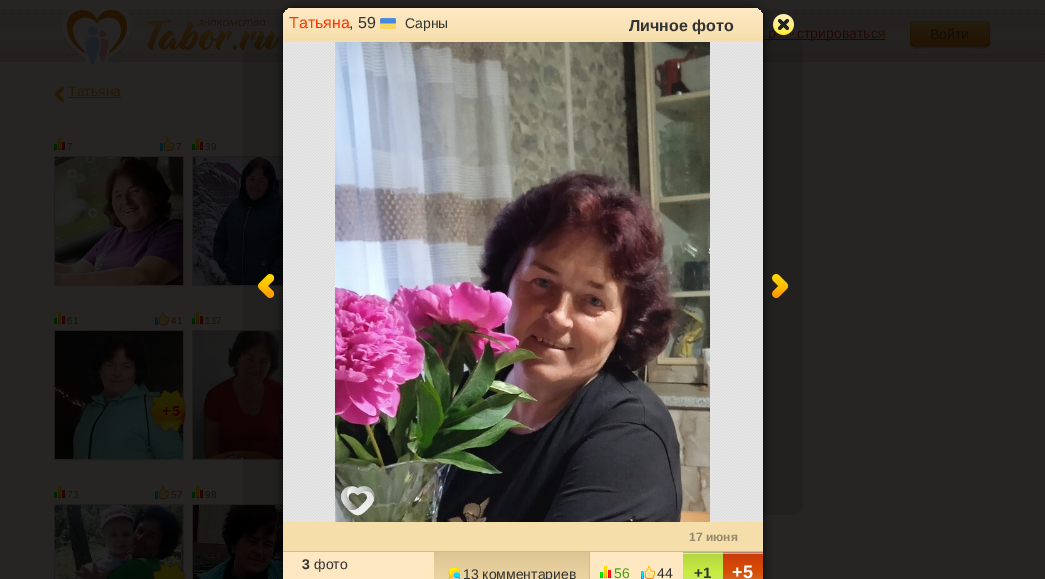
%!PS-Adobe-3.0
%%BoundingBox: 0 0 1045 579
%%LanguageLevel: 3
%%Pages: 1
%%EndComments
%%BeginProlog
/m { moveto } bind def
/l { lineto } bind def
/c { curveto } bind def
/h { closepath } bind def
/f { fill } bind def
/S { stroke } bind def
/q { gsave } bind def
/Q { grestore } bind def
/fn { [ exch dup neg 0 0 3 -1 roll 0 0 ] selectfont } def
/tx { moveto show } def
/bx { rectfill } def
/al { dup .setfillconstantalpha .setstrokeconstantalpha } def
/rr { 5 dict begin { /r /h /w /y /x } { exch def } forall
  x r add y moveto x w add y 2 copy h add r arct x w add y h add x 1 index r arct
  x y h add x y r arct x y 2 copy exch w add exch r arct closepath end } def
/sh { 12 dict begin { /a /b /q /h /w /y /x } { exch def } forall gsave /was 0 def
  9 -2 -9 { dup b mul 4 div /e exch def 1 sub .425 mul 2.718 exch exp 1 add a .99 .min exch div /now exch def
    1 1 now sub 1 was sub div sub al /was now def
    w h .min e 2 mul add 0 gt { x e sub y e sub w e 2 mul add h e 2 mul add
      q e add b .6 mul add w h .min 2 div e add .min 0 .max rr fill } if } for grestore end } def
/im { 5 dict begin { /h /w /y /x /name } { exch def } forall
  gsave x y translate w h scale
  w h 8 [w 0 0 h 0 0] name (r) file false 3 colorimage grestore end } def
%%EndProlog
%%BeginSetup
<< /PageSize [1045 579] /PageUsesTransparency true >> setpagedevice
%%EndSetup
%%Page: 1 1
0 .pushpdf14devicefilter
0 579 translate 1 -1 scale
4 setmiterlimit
0.149 0.145 0.141 setrgbcolor
0 0 1045 579 bx
(image9.raw) 0 9 1045 54 im
(image10.raw) 61 9 218 56 im
0.137 0.031 0.008 setrgbcolor
763 39 122 1 bx
0.125 0.118 0.114 setrgbcolor
192.5 156.5 129 129 rectstroke
(image15.raw) 193 157 90 128 im
192.5 330.5 129 129 rectstroke
(image18.raw) 193 331 90 128 im
192.5 504.5 129 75 rectstroke
(image21.raw) 193 505 90 74 im
0 setgray
283 8 480 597 11 5 0.8 sh
q 293 8 m 753 8 l 758.5 8 763 12.5 763 18 c 763 42 l 283 42 l 283 18 l 283 12.5 287.5 8 293 8 c h clip newpath
<< /ShadingType 2 /ColorSpace /DeviceRGB /Coords [523 8 523 42] /Extend [true true] /Function << /FunctionType 2 /Domain [0 1] /C0 [1 0.914 0.773] /C1 [0.965 0.871 0.671] /N 1 >> >> shfill Q
/LiberationSans-Regular 16 fn
1 0.2 0 setrgbcolor
(Татьяна) 289 28 tx
0.2 setgray
(, 59) 349 28 tx
(image0.raw) 380 18 16 11 im
/LiberationSans-Regular 14 fn
(Сарны) 405 28 tx
/LiberationSans-Bold 16 fn
(Личное фото) 629 31 tx
/LiberationSans-Regular 14 fn
0.137 0.031 0.008 setrgbcolor
(р) 768 38 tx
(image1.raw) 773 14 21 21 im
(image2.raw) 283 42 480 480 im
0.1 al
0 setgray
253 36 m 283 36 l 283 515 l 253 515 l 247.5 515 243 510.5 243 505 c 243 46 l 243 40.5 247.5 36 253 36 c h f
1 al
(image3.raw) 258 274 16 24 im
(image4.raw) 335 42 375 480 im
0.1 al
763 36 m 793 36 l 798.5 36 803 40.5 803 46 c 803 505 l 803 510.5 798.5 515 793 515 c 763 515 l h f
1 al
(image5.raw) 772 274 16 24 im
0.965 0.871 0.671 setrgbcolor
283 522 480 29 bx
0.827 0.733 0.537 setrgbcolor
283 551 480 1 bx
/LiberationSans-Bold 12 fn
0.58 0.533 0.435 setrgbcolor
(17 июня) 689 541 tx
0.996 0.91 0.761 setrgbcolor
283 552 400 27 bx
/LiberationSans-Bold 14 fn
0.2 setgray
(3) 302 569 tx
/LiberationSans-Regular 14 fn
(фото) 314 569 tx
q 434 552 m 589 552 l 589 579 l 434 579 l h clip newpath
<< /ShadingType 2 /ColorSpace /DeviceRGB /Coords [512 552 512 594] /Extend [true true] /Function << /FunctionType 2 /Domain [0 1] /C0 [0.867 0.773 0.576] /C1 [0.957 0.863 0.667] /N 1 >> >> shfill Q
0.827 0.733 0.537 setrgbcolor
589 552 1 27 bx
(image6.raw) 448 567 13 12 im
0.2 setgray
(13 комментариев) 463 579 tx
(image7.raw) 600 566 11 12 im
0.298 0.624 0.043 setrgbcolor
(56) 614 578 tx
(image8.raw) 641 565 14 14 im
0.2 setgray
(44) 657 578 tx
q 683 554 m 723 554 l 723 579 l 683 579 l h clip newpath
<< /ShadingType 2 /ColorSpace /DeviceRGB /Coords [703 552 703 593] /Extend [true true] /Function << /FunctionType 3 /Domain [0 1] /Functions [<< /FunctionType 2 /Domain [0 1] /C0 [0.702 0.827 0.255] /C1 [0.78 0.929 0.255] /N 1 >> << /FunctionType 2 /Domain [0 1] /C0 [0.78 0.929 0.255] /C1 [0.796 0.902 0.514] /N 1 >>] /Bounds [0.5] /Encode [0 1 0 1] >> >> shfill Q
0.851 0.918 0.627 setrgbcolor
683 553 40 1 bx
0.682 0.733 0.502 setrgbcolor
683 552 40 1 bx
/LiberationSans-Bold 15 fn
0.2 setgray
(+1) 694 578 tx
q 723 554 m 763 554 l 763 579 l 723 579 l h clip newpath
<< /ShadingType 2 /ColorSpace /DeviceRGB /Coords [743 552 743 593] /Extend [true true] /Function << /FunctionType 3 /Domain [0 1] /Functions [<< /FunctionType 2 /Domain [0 1] /C0 [0.788 0.224 0.051] /C1 [0.843 0.31 0.02] /N 1 >> << /FunctionType 2 /Domain [0 1] /C0 [0.843 0.31 0.02] /C1 [0.867 0.51 0.314] /N 1 >>] /Bounds [0.5] /Encode [0 1 0 1] >> >> shfill Q
0.894 0.616 0.525 setrgbcolor
723 553 40 1 bx
0.714 0.494 0.42 setrgbcolor
723 552 40 1 bx
/LiberationSans-Bold 18 fn
1 setgray
(+5) 732 578 tx
/LiberationSans-Regular 14 fn
0.137 0.031 0.008 setrgbcolor
(стрироваться) 797 38 tx
0.122 0.114 0.106 setrgbcolor
910 42 m 910 51 921 48 927 48 c 973 48 l 979 48 990 51 990 42 c 990 45 988 47 985 47 c 915 47 l 912 47 910 45 910 42 c h f
0.145 0.114 0.055 setrgbcolor
910 21 80 26 5 rr f
q
910 21 80 26 5 rr clip newpath
q 910 22 m 990 22 l 990 46 l 910 46 l h clip newpath
<< /ShadingType 2 /ColorSpace /DeviceRGB /Coords [950 22 950 46] /Extend [true true] /Function << /FunctionType 2 /Domain [0 1] /C0 [0.145 0.114 0.055] /C1 [0.137 0.075 0.008] /N 1 >> >> shfill Q
Q
0.25 al
0.149 setgray
915 23 m 985 23 l 987 23 989 25 989 27 c 989 19 978 22 973 22 c 927 22 l 922 22 911 19 911 27 c 911 25 913 23 915 23 c h f
0 setgray
988 45 m 985.5 46.5 l 914.5 46.5 l 912 45 l S
0.1 al
912 45 m 909.5 43 910.5 39.5 910.5 36.5 c 910.5 20 909 21.5 926.5 21.5 c 973.5 21.5 l 991 21.5 989.5 20 989.5 36.5 c 989.5 39.5 990.5 43 988 45 c S
1 al
0.067 0.047 0.008 setrgbcolor
(Войти) 930 39 tx
(image11.raw) 55 87 9 15 im
0.133 0.094 0.02 setrgbcolor
(Татьяна) 68 96 tx
68 97 53 1 bx
(image12.raw) 54 138 11 12 im
/LiberationSans-Regular 10 fn
0.043 0.094 0.008 setrgbcolor
(7) 67 150 tx
(image13.raw) 160 137 14 14 im
0.137 0.031 0.008 setrgbcolor
(7) 176 150 tx
0.125 0.118 0.114 setrgbcolor
54.5 156.5 129 129 rectstroke
(image14.raw) 55 157 128 128 im
(image12.raw) 192 138 11 12 im
0.043 0.094 0.008 setrgbcolor
(39) 205 150 tx
(image12.raw) 54 312 11 12 im
(61) 67 324 tx
(image13.raw) 155 311 14 14 im
0.137 0.031 0.008 setrgbcolor
(41) 171 324 tx
0.125 0.118 0.114 setrgbcolor
54.5 330.5 129 129 rectstroke
(image17.raw) 55 331 128 128 im
(image16.raw) 149 390 37 43 im
(image12.raw) 192 312 11 12 im
0.043 0.094 0.008 setrgbcolor
(117) 205 324 tx
(image12.raw) 54 486 11 12 im
(73) 67 498 tx
(image13.raw) 155 485 14 14 im
0.137 0.031 0.008 setrgbcolor
(57) 171 498 tx
0.125 0.118 0.114 setrgbcolor
54.5 504.5 129 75 rectstroke
(image20.raw) 55 505 128 74 im
(image19.raw) 152 564 34 15 im
(image12.raw) 192 486 11 12 im
0.043 0.094 0.008 setrgbcolor
(98) 205 498 tx
.poppdf14devicefilter showpage
%%EOF
